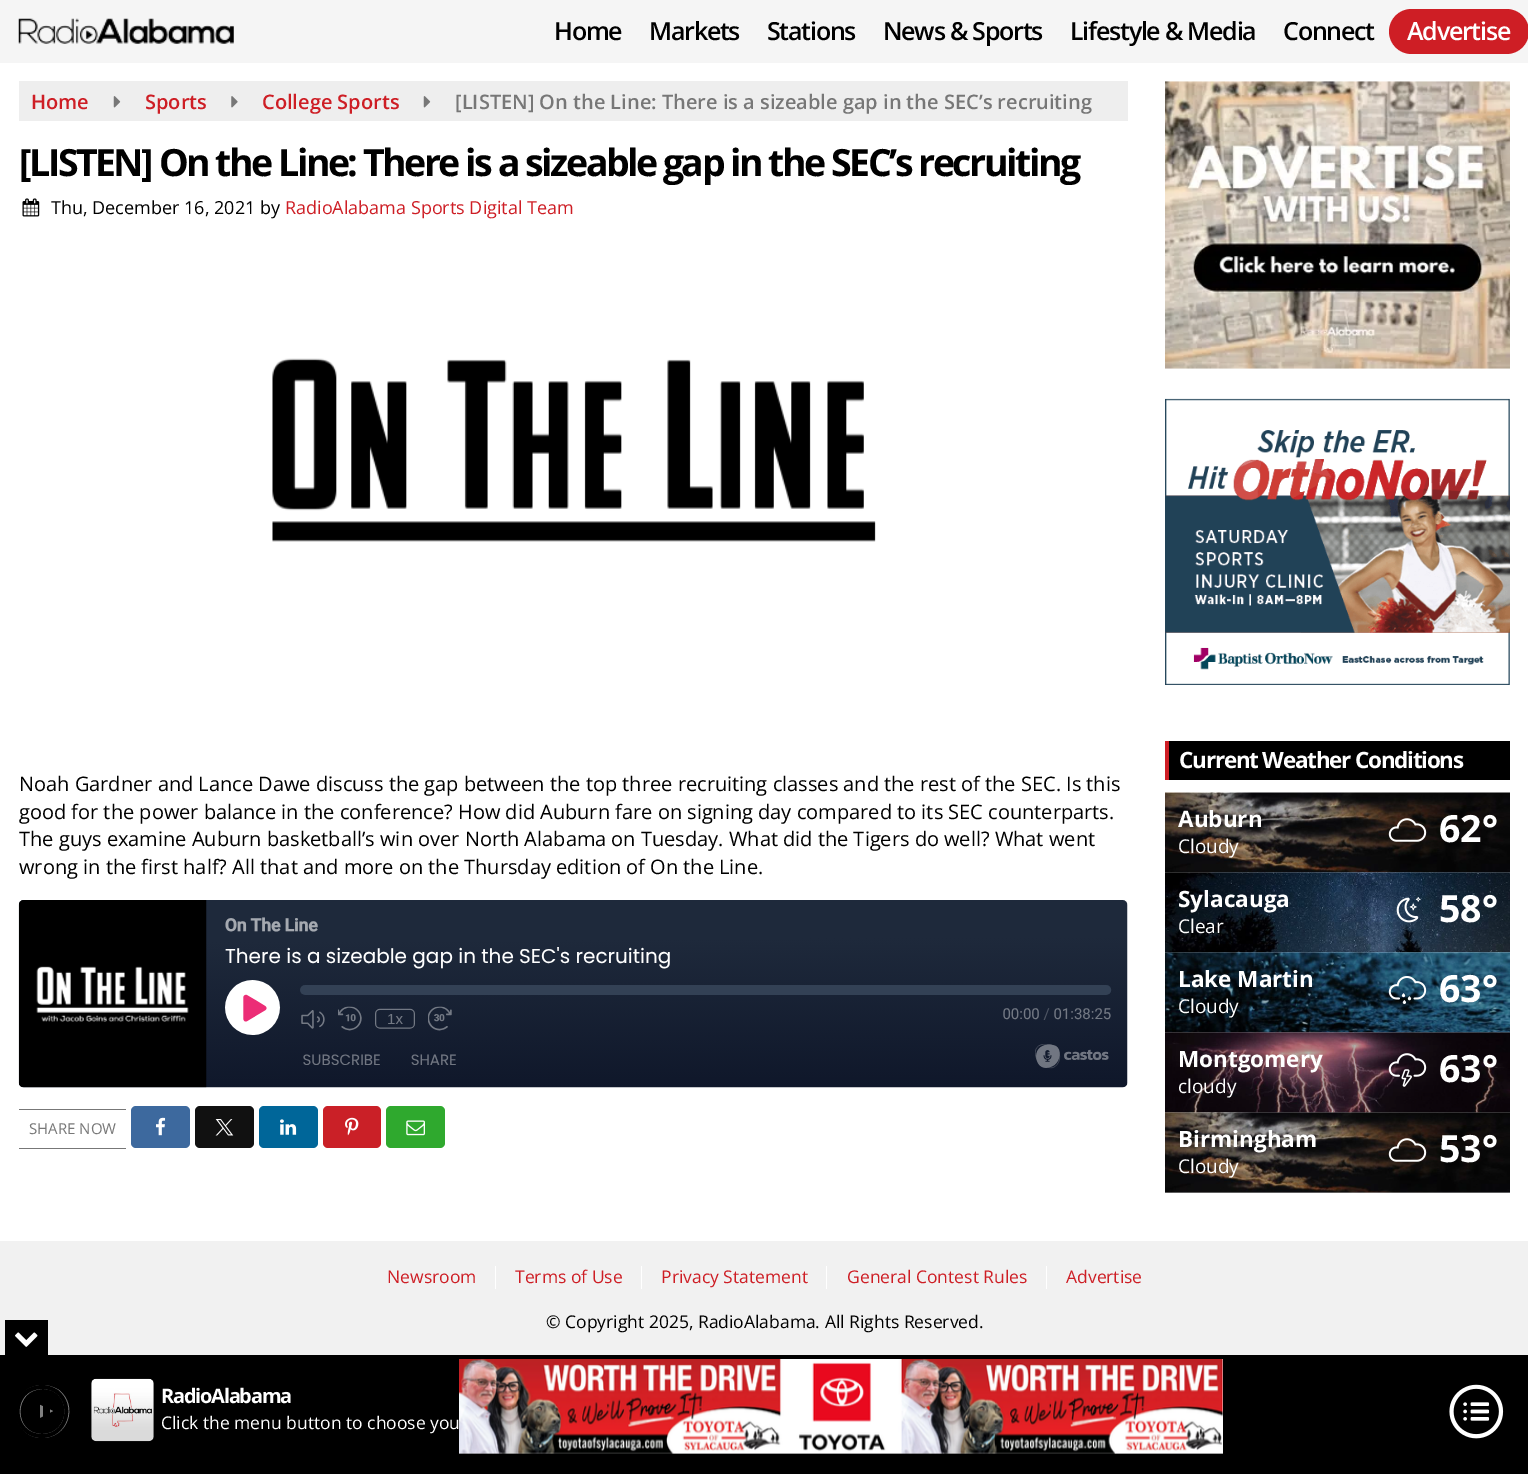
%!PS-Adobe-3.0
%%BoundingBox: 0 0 1528 1474
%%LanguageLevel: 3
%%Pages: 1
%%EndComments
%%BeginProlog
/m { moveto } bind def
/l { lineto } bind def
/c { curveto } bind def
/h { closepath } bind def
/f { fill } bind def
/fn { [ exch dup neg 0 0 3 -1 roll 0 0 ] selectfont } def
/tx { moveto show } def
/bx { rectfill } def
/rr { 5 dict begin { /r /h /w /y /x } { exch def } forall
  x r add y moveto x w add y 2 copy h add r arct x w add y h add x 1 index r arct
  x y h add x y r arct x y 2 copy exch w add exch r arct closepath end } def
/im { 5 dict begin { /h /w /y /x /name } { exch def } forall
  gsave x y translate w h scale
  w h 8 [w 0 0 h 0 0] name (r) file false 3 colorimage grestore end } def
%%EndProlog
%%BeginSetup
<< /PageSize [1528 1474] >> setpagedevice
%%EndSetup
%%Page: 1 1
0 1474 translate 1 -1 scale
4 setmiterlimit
1 setgray
0 0 1528 1474 bx
0.702 setgray
1165 1192 345 1 bx
0.961 setgray
0 0 1528 63 bx
(image0.raw) 18 18 216 26 im
/OpenSans-SemiBold 25 fn
0 setgray
554 40 m -1.25 0 (Home) ashow
649 40 m -1.25 0 (Markets) ashow
767 40 m -1.25 0 (Stations) ashow
883 40 m -1.25 0 (News & Sports) ashow
1070 40 m -1.25 0 (Lifestyle & Media) ashow
1283 40 m -1.25 0 (Connect) ashow
0.808 0.118 0.145 setrgbcolor
1389 9 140 45 22.5 rr f
1 setgray
1407 40 m -1.25 0 (Advertise) ashow
0.933 setgray
19 81 1109 40 bx
/OpenSans-SemiBold 20 fn
0.808 0.118 0.145 setrgbcolor
(Home) 31 109 tx
(image1.raw) 113 96 8 12 im
(Sports) 145 109 tx
(image2.raw) 231 96 7 12 im
(College Sports) 262 109 tx
(image1.raw) 423 96 8 12 im
0.467 setgray
([LISTEN] On the Line: There is a sizeable gap in the SEC’s recruiting) 455 109 tx
/OpenSans-Bold 37.5 fn
0 setgray
19 176 m -2.5 0 ([LISTEN] On the Line: There is a sizeable gap in the SEC’s recruiting) ashow
(image3.raw) 22 198 18 19 im
/OpenSans-Regular 18 fn
(Thu, December 16, 2021 by) 51 214 tx
0.808 0.118 0.145 setrgbcolor
(RadioAlabama Sports Digital Team) 285 214 tx
(image4.raw) 272 358 604 184 im
/OpenSans-Regular 20 fn
0 setgray
(Noah Gardner and Lance Dawe discuss the gap between the top three recruiting classes and the rest of the SEC. Is this) 19 791 tx
(good for the power balance in the conference? How did Auburn fare on signing day compared to its SEC counterparts.) 19 819 tx
(The guys examine Auburn basketball’s win over North Alabama on Tuesday. What did the Tigers do well? What went) 19 846 tx
(wrong in the first half? All that and more on the Thursday edition of On the Line.) 19 874 tx
(image5.raw) 18 900 1110 188 im
0.467 setgray
19 1109 107 1 bx
19 1148 107 1 bx
/OpenSans-Regular 15 fn
(SHARE NOW) 29 1134 tx
0.239 0.412 0.62 setrgbcolor
131 1106 59 42 5 rr f
(image6.raw) 156 1117 10 19 im
0.067 setgray
195 1106 59 42 5 rr f
(image7.raw) 215 1119 19 17 im
0 0.4 0.6 setrgbcolor
259 1106 59 42 5 rr f
(image8.raw) 280 1119 17 16 im
0.792 0.125 0.153 setrgbcolor
323 1106 58 42 5 rr f
(image9.raw) 345 1117 14 19 im
0.184 0.663 0.18 setrgbcolor
386 1106 59 42 5 rr f
(image10.raw) 406 1120 19 16 im
(image11.raw) 1165 81 345 288 im
(image12.raw) 1165 398 345 287 im
0 setgray
1169 741 341 39 bx
0.808 0.118 0.145 setrgbcolor
1165 741 4 39 bx
/OpenSans-Bold 22.5 fn
1 setgray
1179 768 m -1.25 0 (Current Weather Conditions) ashow
(image13.raw) 1165 792 345 81 im
(Auburn) 1178 827 tx
/OpenSans-Regular 19 fn
(Cloudy) 1178 853 tx
(image14.raw) 1388 818 39 24 im
/OpenSans-Bold 37.5 fn
(62°) 1439 842 tx
(image15.raw) 1165 872 345 81 im
/OpenSans-Bold 22.5 fn
(Sylacauga) 1178 907 tx
/OpenSans-Regular 19 fn
(Clear) 1178 933 tx
(image16.raw) 1396 897 25 26 im
/OpenSans-Bold 37.5 fn
(58°) 1439 922 tx
(image17.raw) 1165 952 345 81 im
/OpenSans-Bold 22.5 fn
(Lake Martin) 1178 987 tx
/OpenSans-Regular 19 fn
(Cloudy) 1178 1013 tx
(image18.raw) 1388 976 39 28 im
/OpenSans-Bold 37.5 fn
(63°) 1439 1002 tx
(image19.raw) 1165 1032 345 81 im
/OpenSans-Bold 22.5 fn
(Montgomery) 1178 1067 tx
/OpenSans-Regular 19 fn
(cloudy) 1178 1093 tx
(image20.raw) 1388 1053 39 34 im
/OpenSans-Bold 37.5 fn
(63°) 1439 1082 tx
(image21.raw) 1165 1112 345 81 im
/OpenSans-Bold 22.5 fn
(Birmingham) 1178 1147 tx
/OpenSans-Regular 19 fn
(Cloudy) 1178 1173 tx
(image22.raw) 1388 1138 39 24 im
/OpenSans-Bold 37.5 fn
(53°) 1439 1162 tx
0.945 setgray
0 1241 1528 114 bx
/OpenSans-Regular 17.5 fn
0.808 0.118 0.145 setrgbcolor
(Newsroom) 387 1283 tx
1 setgray
495 1266 1 23 bx
0.808 0.118 0.145 setrgbcolor
(Terms of Use) 515 1283 tx
1 setgray
641 1266 1 23 bx
0.808 0.118 0.145 setrgbcolor
(Privacy Statement) 661 1283 tx
1 setgray
826 1266 1 23 bx
0.808 0.118 0.145 setrgbcolor
(General Contest Rules) 847 1283 tx
1 setgray
1046 1266 1 23 bx
0.808 0.118 0.145 setrgbcolor
(Advertise) 1066 1283 tx
0 setgray
(© Copyright 2025, RadioAlabama. All Rights Reserved.) 546 1328 tx
0 1355 1528 119 bx
5 1320 43 35 bx
(image23.raw) 15 1332 23 15 im
0.502 setgray
42 1385 m 37 1385 31 1387 26 1390 c 6 1406 17 1438 42 1438 c 68 1438 79 1406 59 1390 c 54 1387 48 1385 42 1385 c h 42 1434 m 13 1434 13 1389 43 1389 c 72 1389 72 1434 42 1434 c h 36 1420 m 53 1411 l 36 1403 l h f
0 setgray
42 1385 m 36 1385 30 1387 25 1390 c 5 1406 16 1438 42 1438 c 67 1438 78 1406 58 1390 c 53 1387 48 1385 42 1385 c h 42 1434 m 12 1434 12 1389 42 1389 c 72 1389 72 1434 42 1434 c h 43 1420 m 50 1420 l 50 1403 l 43 1403 l h 33 1403 m 40 1403 l 40 1420 l 33 1420 l h f
(image24.raw) 91 1378 63 64 im
/OpenSans-Bold 20 fn
1 setgray
161 1403 m -1.25 0 (RadioAlabama) ashow
/OpenSans-Regular 17.5 fn
(Click the menu button to choose you) 161 1429 tx
(image25.raw) 459 1359 764 95 im
(image26.raw) 1449 1384 55 55 im
showpage
%%EOF
